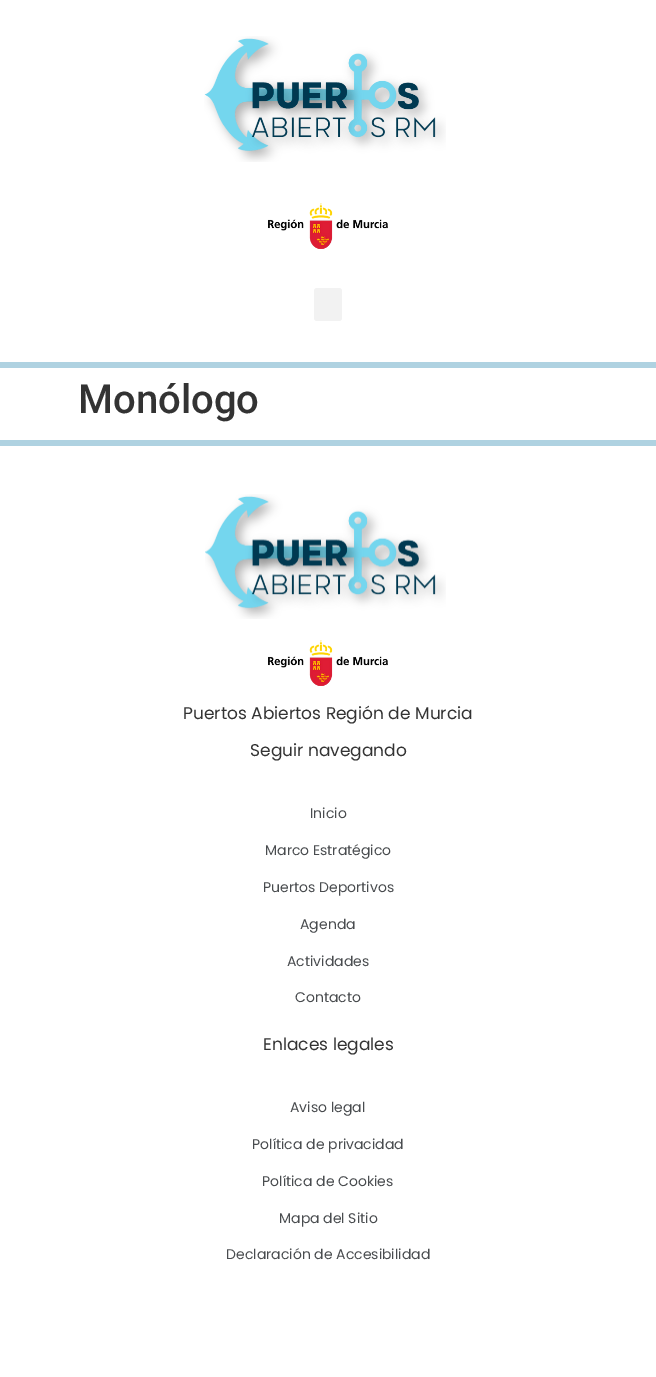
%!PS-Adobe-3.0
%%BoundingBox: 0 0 656 1377
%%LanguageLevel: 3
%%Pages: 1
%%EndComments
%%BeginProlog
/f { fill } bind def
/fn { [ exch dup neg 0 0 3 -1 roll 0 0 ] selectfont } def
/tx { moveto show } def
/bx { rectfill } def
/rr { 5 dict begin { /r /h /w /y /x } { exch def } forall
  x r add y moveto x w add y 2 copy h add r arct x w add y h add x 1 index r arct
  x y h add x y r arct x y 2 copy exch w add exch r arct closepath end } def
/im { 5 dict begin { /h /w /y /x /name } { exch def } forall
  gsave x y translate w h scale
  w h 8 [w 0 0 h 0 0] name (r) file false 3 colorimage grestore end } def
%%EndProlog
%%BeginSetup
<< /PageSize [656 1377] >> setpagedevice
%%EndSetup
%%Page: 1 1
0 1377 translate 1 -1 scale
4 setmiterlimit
1 setgray
0 0 656 1377 bx
0.686 0.824 0.882 setrgbcolor
0 362 656 6 bx
(image0.raw) 204 36 242 126 im
(image1.raw) 268 203 120 46 im
0.949 setgray
314 288 28 33 3 rr f
/Roboto-Medium 40 fn
0.2 setgray
(Monólogo) 78 413 tx
0.686 0.824 0.882 setrgbcolor
0 440 656 6 bx
(image2.raw) 205 494 241 125 im
(image1.raw) 268 640 120 46 im
/Poppins-Regular 17 fn
0.2 setgray
(Puertos Abiertos Región de Murcia) 183 719 tx
(Seguir navegando) 250 756 tx
/Poppins-Regular 14 fn
0.286 0.298 0.31 setrgbcolor
(Inicio) 310 818 tx
(Marco Estratégico) 265 855 tx
(Puertos Deportivos) 263 892 tx
(Agenda) 300 929 tx
(Actividades) 287 966 tx
(Contacto) 295 1002 tx
/Poppins-Regular 17 fn
0.2 setgray
(Enlaces legales) 263 1050 tx
/Poppins-Regular 14 fn
0.286 0.298 0.31 setrgbcolor
(Aviso legal) 290 1112 tx
(Política de privacidad) 252 1149 tx
(Política de Cookies) 262 1186 tx
(Mapa del Sitio) 279 1223 tx
(Declaración de Accesibilidad) 226 1259 tx
showpage
%%EOF
